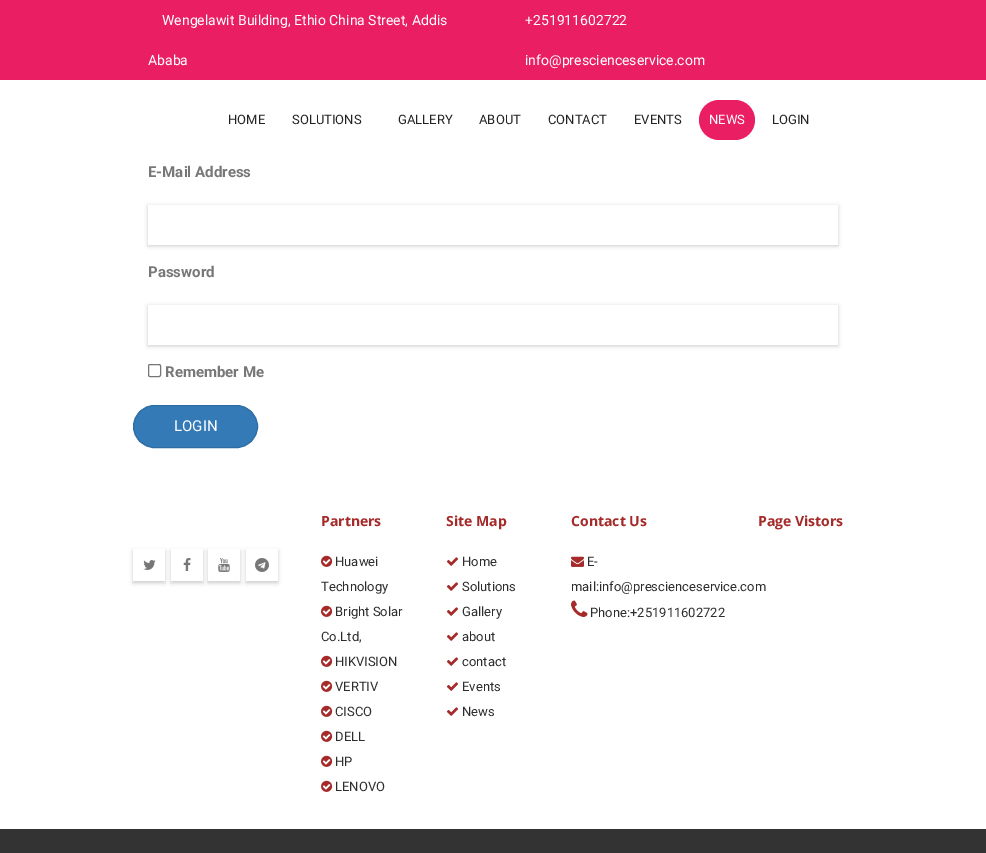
%!PS-Adobe-3.0
%%BoundingBox: 0 0 986 853
%%LanguageLevel: 3
%%Pages: 1
%%EndComments
%%BeginProlog
/m { moveto } bind def
/l { lineto } bind def
/h { closepath } bind def
/f { fill } bind def
/S { stroke } bind def
/q { gsave } bind def
/Q { grestore } bind def
/fn { [ exch dup neg 0 0 3 -1 roll 0 0 ] selectfont } def
/tx { moveto show } def
/bx { rectfill } def
/al { dup .setfillconstantalpha .setstrokeconstantalpha } def
/rr { 5 dict begin { /r /h /w /y /x } { exch def } forall
  x r add y moveto x w add y 2 copy h add r arct x w add y h add x 1 index r arct
  x y h add x y r arct x y 2 copy exch w add exch r arct closepath end } def
/sh { 12 dict begin { /a /b /q /h /w /y /x } { exch def } forall gsave /was 0 def
  9 -2 -9 { dup b mul 4 div /e exch def 1 sub .425 mul 2.718 exch exp 1 add a .99 .min exch div /now exch def
    1 1 now sub 1 was sub div sub al /was now def
    w h .min e 2 mul add 0 gt { x e sub y e sub w e 2 mul add h e 2 mul add
      q e add b .6 mul add w h .min 2 div e add .min 0 .max rr fill } if } for grestore end } def
/im { 5 dict begin { /h /w /y /x /name } { exch def } forall
  gsave x y translate w h scale
  w h 8 [w 0 0 h 0 0] name (r) file false 3 colorimage grestore end } def
%%EndProlog
%%BeginSetup
<< /PageSize [986 853] /PageUsesTransparency true >> setpagedevice
%%EndSetup
%%Page: 1 1
0 .pushpdf14devicefilter
0 853 translate 1 -1 scale
4 setmiterlimit
1 setgray
0 0 986 853 bx
0.914 0.118 0.388 setrgbcolor
0 0 986 80 bx
/Roboto-Regular 14 fn
1 setgray
(Wengelawit Building, Ethio China Street, Addis) 162 25 tx
(Ababa) 148 65 tx
(+251911602722) 525 25 tx
(info@prescienceservice.com) 525 65 tx
/Roboto-Regular 13 fn
0.133 setgray
(HOME) 228 124 tx
(SOLUTIONS) 292 124 tx
(GALLERY) 398 124 tx
(ABOUT) 479 124 tx
(CONTACT) 548 124 tx
(EVENTS) 634 124 tx
0.914 0.118 0.388 setrgbcolor
699 100 56 40 20 rr f
1 setgray
(NEWS) 709 124 tx
0.133 setgray
(LOGIN) 772 124 tx
/Roboto-Bold 15 fn
0.467 setgray
(E-Mail Address) 148 177 tx
q
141 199 m 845 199 l 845 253 l 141 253 l h 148 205 m 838 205 l 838 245 l 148 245 l h eoclip newpath
0 setgray
148 206 690 40 0 2 0.2 sh
Q
(Password) 148 277 tx
q
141 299 m 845 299 l 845 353 l 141 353 l h 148 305 m 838 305 l 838 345 l 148 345 l h eoclip newpath
0 setgray
148 306 690 40 0 2 0.2 sh
Q
0.463 setgray
148.5 364.5 12 12 1.5 rr S
0.467 setgray
(Remember Me) 165 377 tx
0.2 0.478 0.718 setrgbcolor
133.5 405.5 124 42 21 rr q f Q
0.18 0.427 0.643 setrgbcolor
S
/Roboto-Regular 15 fn
1 setgray
(LOGIN) 174 431 tx
q
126 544 m 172 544 l 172 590 l 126 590 l h 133 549 m 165 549 l 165 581 l 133 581 l h eoclip newpath
0 setgray
133 551 32 32 0 2 0.2 sh
Q
(image0.raw) 143 560 13 10 im
q
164 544 m 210 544 l 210 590 l 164 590 l h 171 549 m 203 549 l 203 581 l 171 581 l h eoclip newpath
0 setgray
171 551 32 32 0 2 0.2 sh
Q
(image1.raw) 183 558 8 13 im
q
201 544 m 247 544 l 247 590 l 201 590 l h 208 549 m 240 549 l 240 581 l 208 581 l h eoclip newpath
0 setgray
208 551 32 32 0 2 0.2 sh
Q
(image2.raw) 218 558 12 14 im
q
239 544 m 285 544 l 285 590 l 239 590 l h 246 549 m 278 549 l 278 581 l 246 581 l h eoclip newpath
0 setgray
246 551 32 32 0 2 0.2 sh
Q
(image3.raw) 255 558 14 14 im
/OpenSans-Bold 14 fn
0.647 0.165 0.165 setrgbcolor
(Partners) 321 526 tx
(image4.raw) 321 555 12 12 im
/Roboto-Regular 13 fn
0.176 setgray
(Huawei) 335 566 tx
(Technology) 321 591 tx
(image4.raw) 321 605 12 12 im
(Bright Solar) 335 616 tx
(Co.Ltd,) 321 641 tx
(image4.raw) 321 655 12 12 im
(HIKVISION) 335 666 tx
(image4.raw) 321 680 12 12 im
(VERTIV) 335 691 tx
(image4.raw) 321 705 12 12 im
(CISCO) 335 716 tx
(image4.raw) 321 730 12 12 im
(DELL) 335 741 tx
(image4.raw) 321 755 12 12 im
(HP) 335 766 tx
(image4.raw) 321 780 12 12 im
(LENOVO) 335 791 tx
/OpenSans-Bold 14 fn
0.647 0.165 0.165 setrgbcolor
(Site Map) 446 526 tx
(image5.raw) 446 557 13 9 im
/Roboto-Regular 13 fn
0.176 setgray
(Home) 462 566 tx
(image5.raw) 446 582 13 9 im
(Solutions) 462 591 tx
(image5.raw) 446 607 13 9 im
(Gallery) 462 616 tx
(image5.raw) 446 632 13 9 im
(about) 462 641 tx
(image5.raw) 446 657 13 9 im
(contact) 462 666 tx
(image5.raw) 446 682 13 9 im
(Events) 462 691 tx
(image5.raw) 446 707 13 9 im
(News) 462 716 tx
/OpenSans-Bold 14 fn
0.647 0.165 0.165 setrgbcolor
(Contact Us) 571 526 tx
(image6.raw) 571 556 13 11 im
/Roboto-Regular 13 fn
0.176 setgray
(E-) 587 566 tx
(mail:info@prescienceservice.com) 571 591 tx
(image7.raw) 571 600 17 17 im
(Phone:+251911602722) 590 617 tx
/OpenSans-Bold 14 fn
0.647 0.165 0.165 setrgbcolor
(Page Vistors) 758 526 tx
0.2 setgray
0 829 986 24 bx
.poppdf14devicefilter showpage
%%EOF
